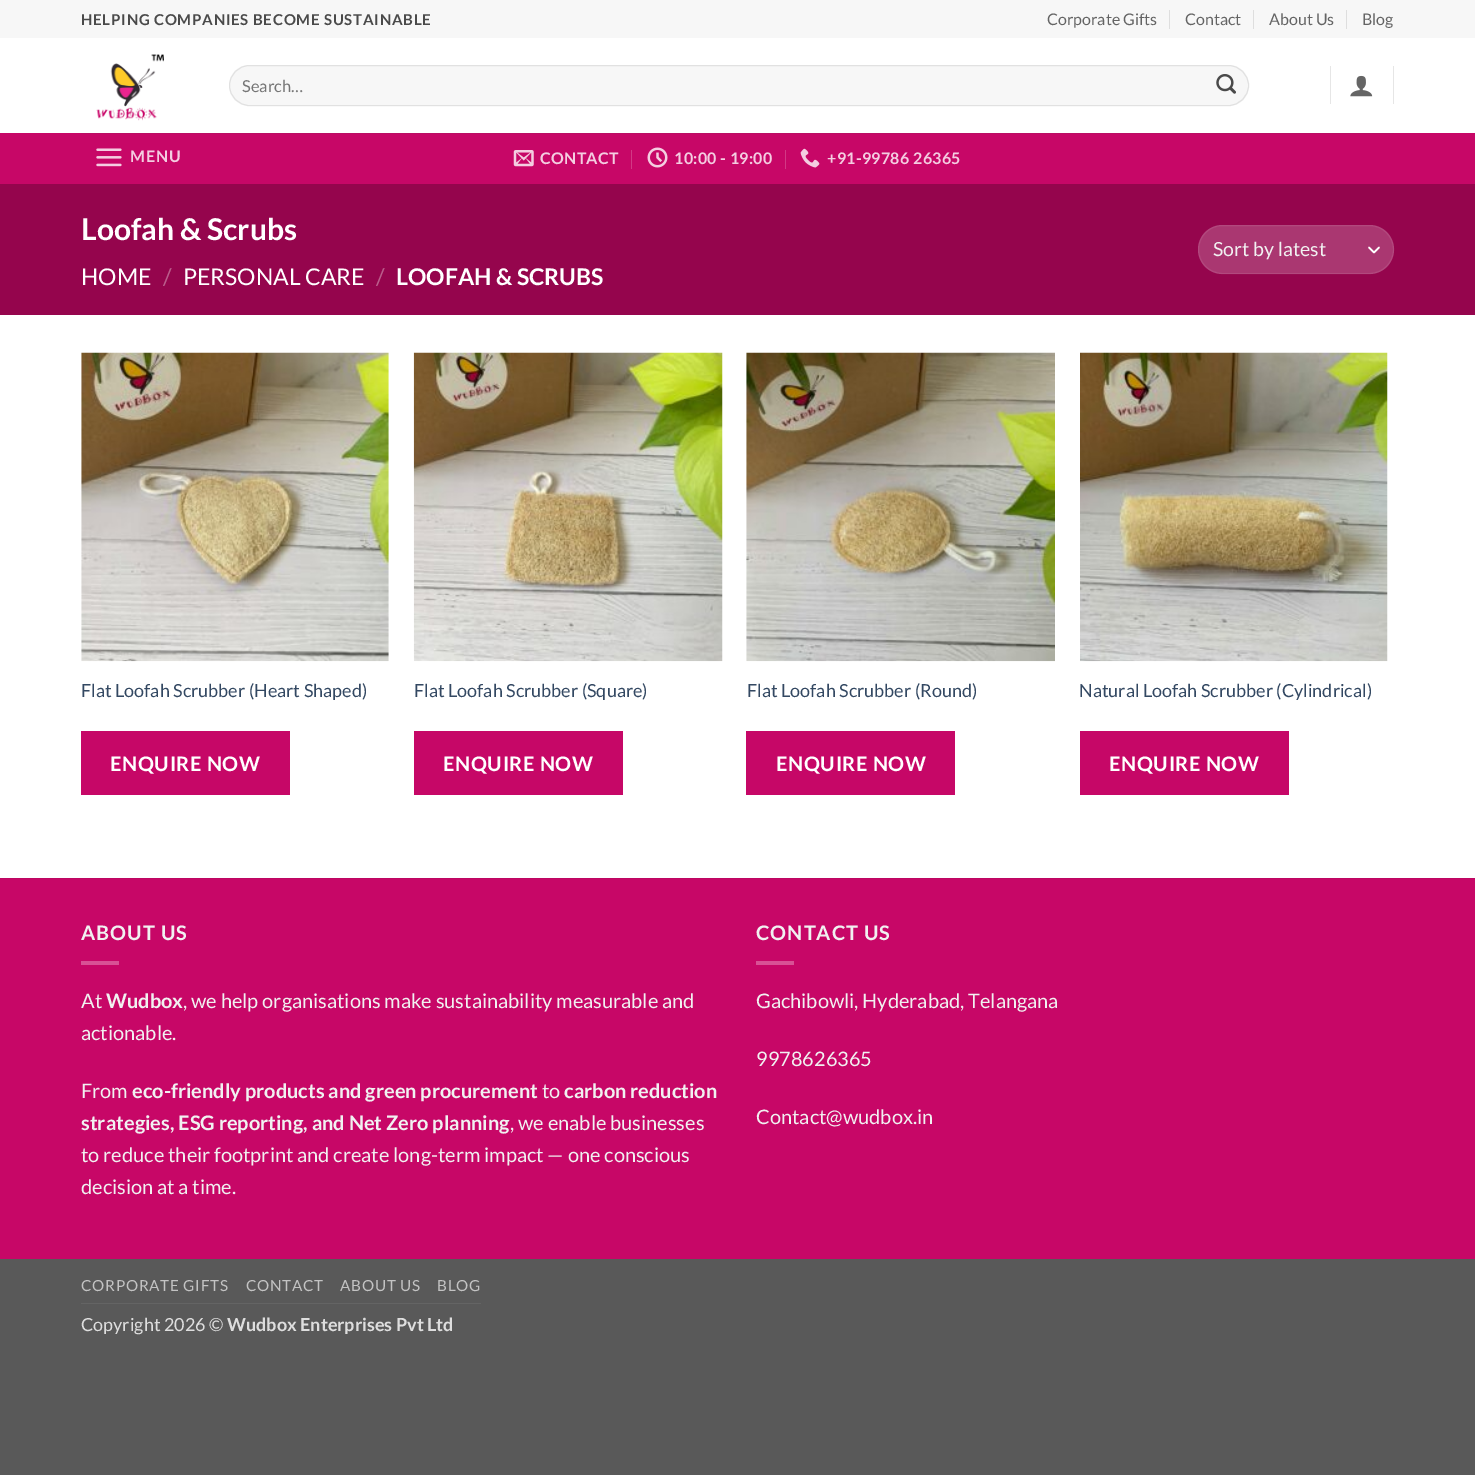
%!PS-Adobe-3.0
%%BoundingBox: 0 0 1475 1475
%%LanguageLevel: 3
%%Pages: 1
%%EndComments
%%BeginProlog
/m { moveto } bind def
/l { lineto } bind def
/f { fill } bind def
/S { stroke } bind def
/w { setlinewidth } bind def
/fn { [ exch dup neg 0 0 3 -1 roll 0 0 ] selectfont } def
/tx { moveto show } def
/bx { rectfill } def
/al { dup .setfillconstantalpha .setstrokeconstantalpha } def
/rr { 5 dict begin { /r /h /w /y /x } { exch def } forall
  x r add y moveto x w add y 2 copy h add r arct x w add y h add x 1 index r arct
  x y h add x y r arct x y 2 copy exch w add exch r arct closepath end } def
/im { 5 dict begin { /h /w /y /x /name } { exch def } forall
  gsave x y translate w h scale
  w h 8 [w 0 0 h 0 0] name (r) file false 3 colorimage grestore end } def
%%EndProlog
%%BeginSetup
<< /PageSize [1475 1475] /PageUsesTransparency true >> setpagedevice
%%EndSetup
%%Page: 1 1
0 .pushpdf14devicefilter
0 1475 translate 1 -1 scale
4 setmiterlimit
0.349 setgray
0 0 1475 1475 bx
1 setgray
0 38 1475 840 bx
0.969 setgray
0 0 1475 38 bx
/Lato-Bold 15 fn
0.29 setgray
81 25 m 0.75 0 (HELPING COMPANIES BECOME SUSTAINABLE) ashow
/Lato-Regular 16 fn
0.392 setgray
(Corporate Gifts) 1047 25 tx
0.871 setgray
1169 10 1 19 bx
0.392 setgray
(Contact) 1185 25 tx
0.871 setgray
1253 10 1 19 bx
0.392 setgray
(About Us) 1269 25 tx
0.871 setgray
1346 10 1 19 bx
0.392 setgray
(Blog) 1362 25 tx
(image0.raw) 96 54 68 67 im
0.969 setgray
229 65 1020 41 20.5 rr f
0.09 al
0 setgray
229.5 65.5 1019 40 20 rr S
/Lato-Regular 16.5 fn
1 al
0.459 setgray
(Search…) 242 92 tx
(image1.raw) 1216 74 20 20 im
0.902 setgray
1330 66 1 38 bx
(image2.raw) 1350 75 23 22 im
1393 66 1 38 bx
0.78 0.027 0.404 setrgbcolor
0 133 1475 51 bx
0.729 0.055 0.392 setrgbcolor
81 133 1313 1 bx
(image3.raw) 96 148 26 19 im
/Lato-Bold 16 fn
0.957 0.804 0.882 setrgbcolor
130 162 m 1 0 (MENU) ashow
(image4.raw) 513 150 21 17 im
540 164 m 0.3 0 (CONTACT) ashow
0.824 0.224 0.522 setrgbcolor
631 150 1 19 bx
(image5.raw) 647 147 21 21 im
0.957 0.804 0.882 setrgbcolor
674 164 m 0.3 0 (10:00 - 19:00) ashow
0.824 0.224 0.522 setrgbcolor
785 150 1 19 bx
(image6.raw) 800 148 20 20 im
0.957 0.804 0.882 setrgbcolor
827 164 m 0.3 0 (+91-99786 26365) ashow
0.584 0.02 0.302 setrgbcolor
0 184 1475 131 bx
/Lato-Bold 30 fn
1 setgray
(Loofah & Scrubs) 81 240 tx
/Lato-Regular 23 fn
(HOME) 81 285 tx
0.729 0.365 0.545 setrgbcolor
(/) 163 285 tx
1 setgray
(PERSONAL CARE) 183 285 tx
0.729 0.365 0.545 setrgbcolor
(/) 376 285 tx
/Lato-Bold 23 fn
1 setgray
(LOOFAH & SCRUBS) 396 285 tx
0.667 0.216 0.443 setrgbcolor
1198 225 196 49 24.5 rr f
1 setgray
1.7 w
1 setlinecap
1 setlinejoin
1369 247.5 m 1374 252.5 l 1379 247.5 l S
0.09 al
1 w
0 setlinecap
0 setlinejoin
1198.5 225.5 195 48 24 rr S
/Lato-Regular 19.5 fn
1 al
0.945 setgray
(Sort by latest) 1213 256 tx
(image7.raw) 81 352 308 310 im
/Lato-Regular 18 fn
0.2 0.282 0.384 setrgbcolor
(Flat Loofah Scrubber \(Heart Shaped\)) 81 697 tx
0.776 0.027 0.404 setrgbcolor
81 731 209 64 bx
/Lato-Bold 20 fn
1 setgray
110 771 m 0.6 0 (ENQUIRE NOW) ashow
(image8.raw) 413 352 310 310 im
/Lato-Regular 18 fn
0.2 0.282 0.384 setrgbcolor
(Flat Loofah Scrubber \(Square\)) 414 697 tx
0.776 0.027 0.404 setrgbcolor
414 731 209 64 bx
/Lato-Bold 20 fn
1 setgray
443 771 m 0.6 0 (ENQUIRE NOW) ashow
(image9.raw) 746 352 309 310 im
/Lato-Regular 18 fn
0.2 0.282 0.384 setrgbcolor
(Flat Loofah Scrubber \(Round\)) 747 697 tx
0.776 0.027 0.404 setrgbcolor
746 731 209 64 bx
/Lato-Bold 20 fn
1 setgray
776 771 m 0.6 0 (ENQUIRE NOW) ashow
(image10.raw) 1080 352 308 310 im
/Lato-Regular 18 fn
0.2 0.282 0.384 setrgbcolor
(Natural Loofah Scrubber \(Cylindrical\)) 1079 697 tx
0.776 0.027 0.404 setrgbcolor
1080 731 209 64 bx
/Lato-Bold 20 fn
1 setgray
1109 771 m 0.6 0 (ENQUIRE NOW) ashow
0.78 0.027 0.404 setrgbcolor
0 879 1475 380 bx
0.741 0.027 0.384 setrgbcolor
0 878 1475 1 bx
0.945 setgray
81 940 m 1 0 (ABOUT US) ashow
0.847 0.318 0.584 setrgbcolor
81 961 38 4 bx
/Lato-Regular 20 fn
0.945 setgray
(At) 81 1008 tx
/Lato-Bold 20 fn
(Wudbox) 106 1008 tx
/Lato-Regular 20 fn
(, we help organisations make sustainability measurable and) 183 1008 tx
(actionable.) 81 1040 tx
(From) 81 1098 tx
/Lato-Bold 20 fn
(eco-friendly products and green procurement) 132 1098 tx
/Lato-Regular 20 fn
(to) 542 1098 tx
/Lato-Bold 20 fn
(carbon reduction) 564 1098 tx
(strategies, ESG reporting, and Net Zero planning) 81 1130 tx
/Lato-Regular 20 fn
(, we enable businesses) 510 1130 tx
(to reduce their footprint and create long-term impact — one conscious) 81 1162 tx
(decision at a time.) 81 1194 tx
/Lato-Bold 20 fn
756 940 m 1 0 (CONTACT US) ashow
0.847 0.318 0.584 setrgbcolor
756 961 38 4 bx
/Lato-Regular 20 fn
0.945 setgray
(Gachibowli, Hyderabad, Telangana) 756 1008 tx
(9978626365) 756 1066 tx
(Contact@wudbox.in) 756 1124 tx
0.392 setgray
81 1303 400 1 bx
/Lato-Regular 15.25 fn
0.765 setgray
81 1291 m 0.75 0 (CORPORATE GIFTS) ashow
246 1291 m 0.75 0 (CONTACT) ashow
340 1291 m 0.75 0 (ABOUT US) ashow
437 1291 m 0.75 0 (BLOG) ashow
/Lato-Regular 18 fn
0.871 setgray
(Copyright 2026 ©) 81 1331 tx
/Lato-Bold 18 fn
(Wudbox Enterprises Pvt Ltd) 227 1331 tx
.poppdf14devicefilter showpage
%%EOF
